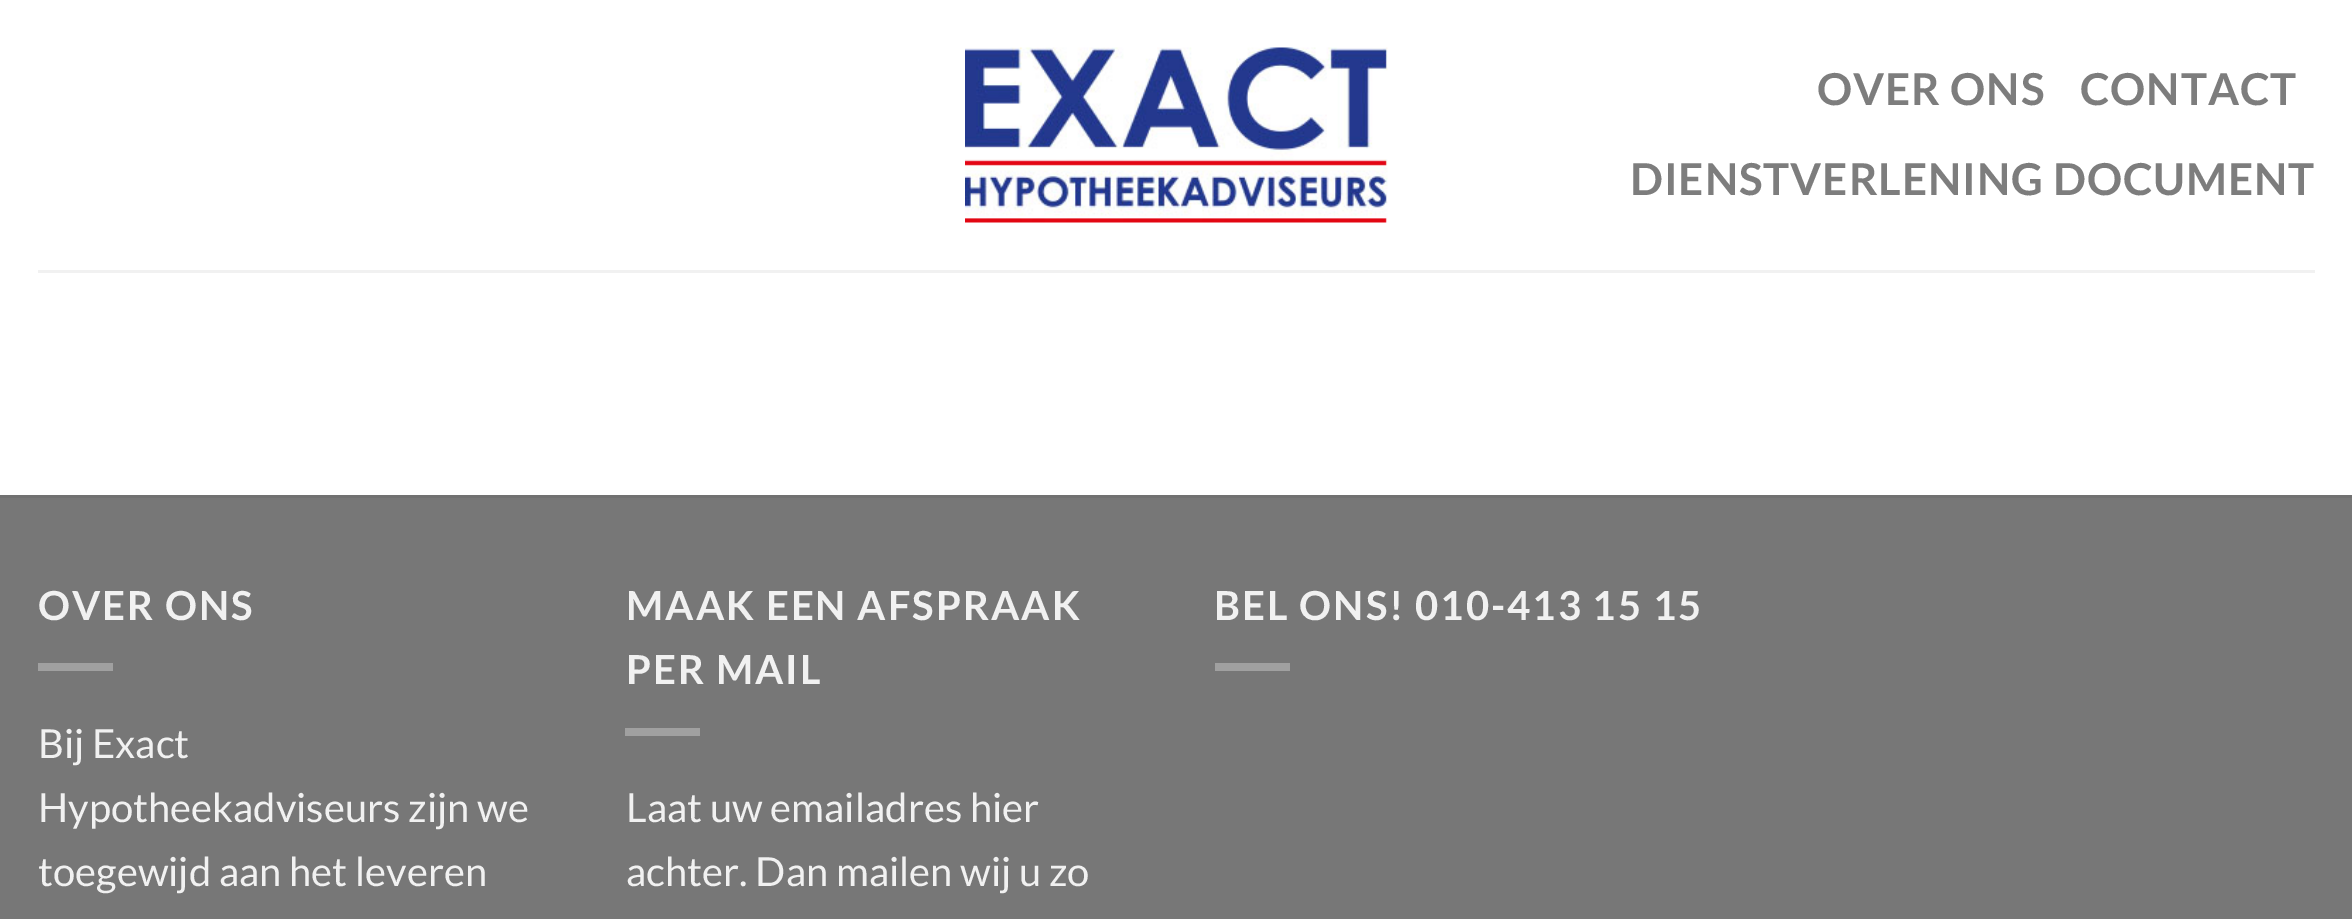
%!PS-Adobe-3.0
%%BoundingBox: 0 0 2352 919
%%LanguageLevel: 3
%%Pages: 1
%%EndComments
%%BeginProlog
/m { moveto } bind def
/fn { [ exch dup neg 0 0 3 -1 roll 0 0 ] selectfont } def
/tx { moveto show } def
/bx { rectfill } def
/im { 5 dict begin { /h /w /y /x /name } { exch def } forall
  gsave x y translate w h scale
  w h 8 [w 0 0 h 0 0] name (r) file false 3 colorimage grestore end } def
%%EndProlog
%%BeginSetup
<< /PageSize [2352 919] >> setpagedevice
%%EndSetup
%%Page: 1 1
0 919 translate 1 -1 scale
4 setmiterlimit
1 setgray
0 0 2352 919 bx
(image0.raw) 965 47 423 176 im
/Lato-Bold 44 fn
0.49 setgray
1817 105 m 0.9 0 (OVER ONS) ashow
2080 105 m 0.9 0 (CONTACT) ashow
1630 195 m 0.9 0 (DIENSTVERLENING DOCUMENT) ashow
0.945 setgray
38 270 2277 3 bx
0.467 setgray
0 498 2352 421 bx
0.443 setgray
0 495 2352 3 bx
/Lato-Bold 40 fn
0.945 setgray
38 620 m 2 0 (OVER ONS) ashow
0.627 setgray
38 663 75 8 bx
/Lato-Regular 40 fn
0.945 setgray
(Bij Exact) 38 758 tx
(Hypotheekadviseurs zijn we) 38 822 tx
(toegewijd aan het leveren) 38 886 tx
/Lato-Bold 40 fn
626 620 m 2 0 (MAAK EEN AFSPRAAK) ashow
626 684 m 2 0 (PER MAIL) ashow
0.627 setgray
625 728 75 8 bx
/Lato-Regular 40 fn
0.945 setgray
(Laat uw emailadres hier) 626 822 tx
(achter. Dan mailen wij u zo) 626 886 tx
/Lato-Bold 40 fn
1214 620 m 2 0 (BEL ONS! 010-413 15 15) ashow
0.627 setgray
1215 663 75 8 bx
showpage
%%EOF
